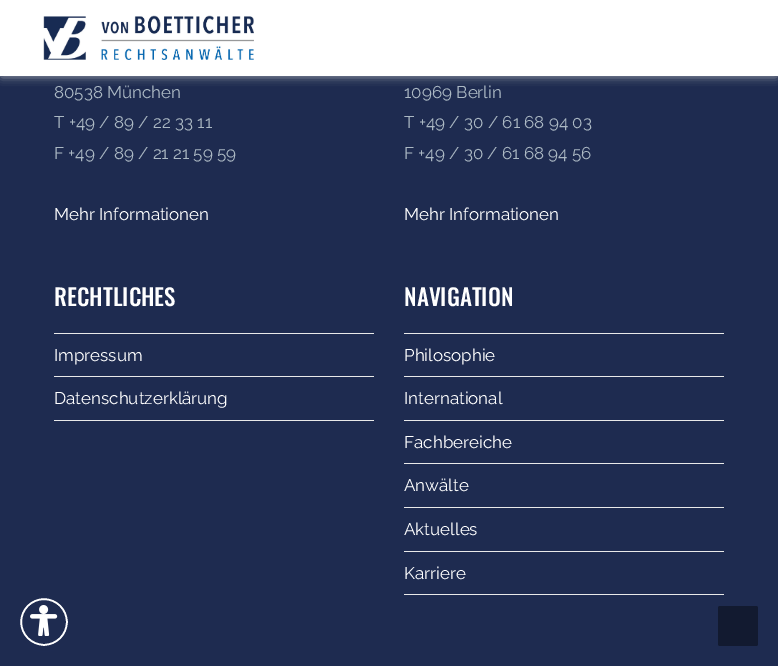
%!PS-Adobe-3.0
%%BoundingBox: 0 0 778 666
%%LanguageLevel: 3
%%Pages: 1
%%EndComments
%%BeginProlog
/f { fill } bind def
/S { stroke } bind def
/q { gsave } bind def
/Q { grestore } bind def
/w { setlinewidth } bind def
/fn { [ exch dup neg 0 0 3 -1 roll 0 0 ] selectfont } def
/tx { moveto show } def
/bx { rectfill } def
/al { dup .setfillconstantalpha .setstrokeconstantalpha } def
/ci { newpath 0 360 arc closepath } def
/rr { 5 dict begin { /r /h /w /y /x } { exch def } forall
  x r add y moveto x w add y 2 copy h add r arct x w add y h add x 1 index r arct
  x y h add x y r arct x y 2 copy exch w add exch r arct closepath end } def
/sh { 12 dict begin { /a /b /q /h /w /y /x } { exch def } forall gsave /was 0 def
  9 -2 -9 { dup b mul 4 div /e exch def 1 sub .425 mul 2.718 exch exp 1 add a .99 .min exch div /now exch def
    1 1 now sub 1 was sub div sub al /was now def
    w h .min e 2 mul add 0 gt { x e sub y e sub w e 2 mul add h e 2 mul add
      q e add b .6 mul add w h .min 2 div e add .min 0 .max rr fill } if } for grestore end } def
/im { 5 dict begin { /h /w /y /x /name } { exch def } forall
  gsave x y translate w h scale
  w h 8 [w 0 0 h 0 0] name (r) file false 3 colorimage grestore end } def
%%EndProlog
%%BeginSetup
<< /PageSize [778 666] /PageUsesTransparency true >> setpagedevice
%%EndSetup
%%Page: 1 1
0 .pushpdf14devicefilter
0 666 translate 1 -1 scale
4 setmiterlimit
0.118 0.169 0.314 setrgbcolor
0 0 778 666 bx
0.867 setgray
2 3 774 72 0 5 1 sh
1 setgray
0 0 778 76 bx
(image0.raw) 43 15 211 45 im
/Raleway-Regular 17 fn
0.671 0.722 0.765 setrgbcolor
(80538 München) 54 98 tx
(T +49 / 89 / 22 33 11) 54 128 tx
(F +49 / 89 / 21 21 59 59) 54 159 tx
1 setgray
(Mehr Informationen) 54 220 tx
0.671 0.722 0.765 setrgbcolor
(10969 Berlin) 404 98 tx
(T +49 / 30 / 61 68 94 03) 404 128 tx
(F +49 / 30 / 61 68 94 56) 404 159 tx
1 setgray
(Mehr Informationen) 404 220 tx
/Oswald-Medium 23 fn
(RECHTLICHES) 54 306 tx
0.914 setgray
54 333 320 1 bx
54 376 320 1 bx
/Raleway-Regular 17 fn
1 setgray
(Impressum) 54 361 tx
0.914 setgray
54 420 320 1 bx
1 setgray
(Datenschutzerklärung) 54 404 tx
/Oswald-Medium 23 fn
(NAVIGATION) 404 306 tx
0.914 setgray
404 333 320 1 bx
404 376 320 1 bx
/Raleway-Regular 17 fn
1 setgray
(Philosophie) 404 361 tx
0.914 setgray
404 420 320 1 bx
1 setgray
(International) 404 404 tx
0.914 setgray
404 463 320 1 bx
1 setgray
(Fachbereiche) 404 448 tx
0.914 setgray
404 507 320 1 bx
1 setgray
(Anwälte) 404 491 tx
0.914 setgray
404 551 320 1 bx
1 setgray
(Aktuelles) 404 535 tx
0.914 setgray
404 594 320 1 bx
1 setgray
(Karriere) 404 579 tx
0.365 0.392 0.58 setrgbcolor
20 600 48 48 24 2 0.2 sh
0.118 0.169 0.314 setrgbcolor
44 622 23 ci q f Q
1 setgray
2 w
S
0.118 0.169 0.314 setrgbcolor
5 w
44 622 26.5 ci S
(image1.raw) 30 605 28 31 im
0.071 0.102 0.188 setrgbcolor
718 606 40 40 2 rr f
.poppdf14devicefilter showpage
%%EOF
